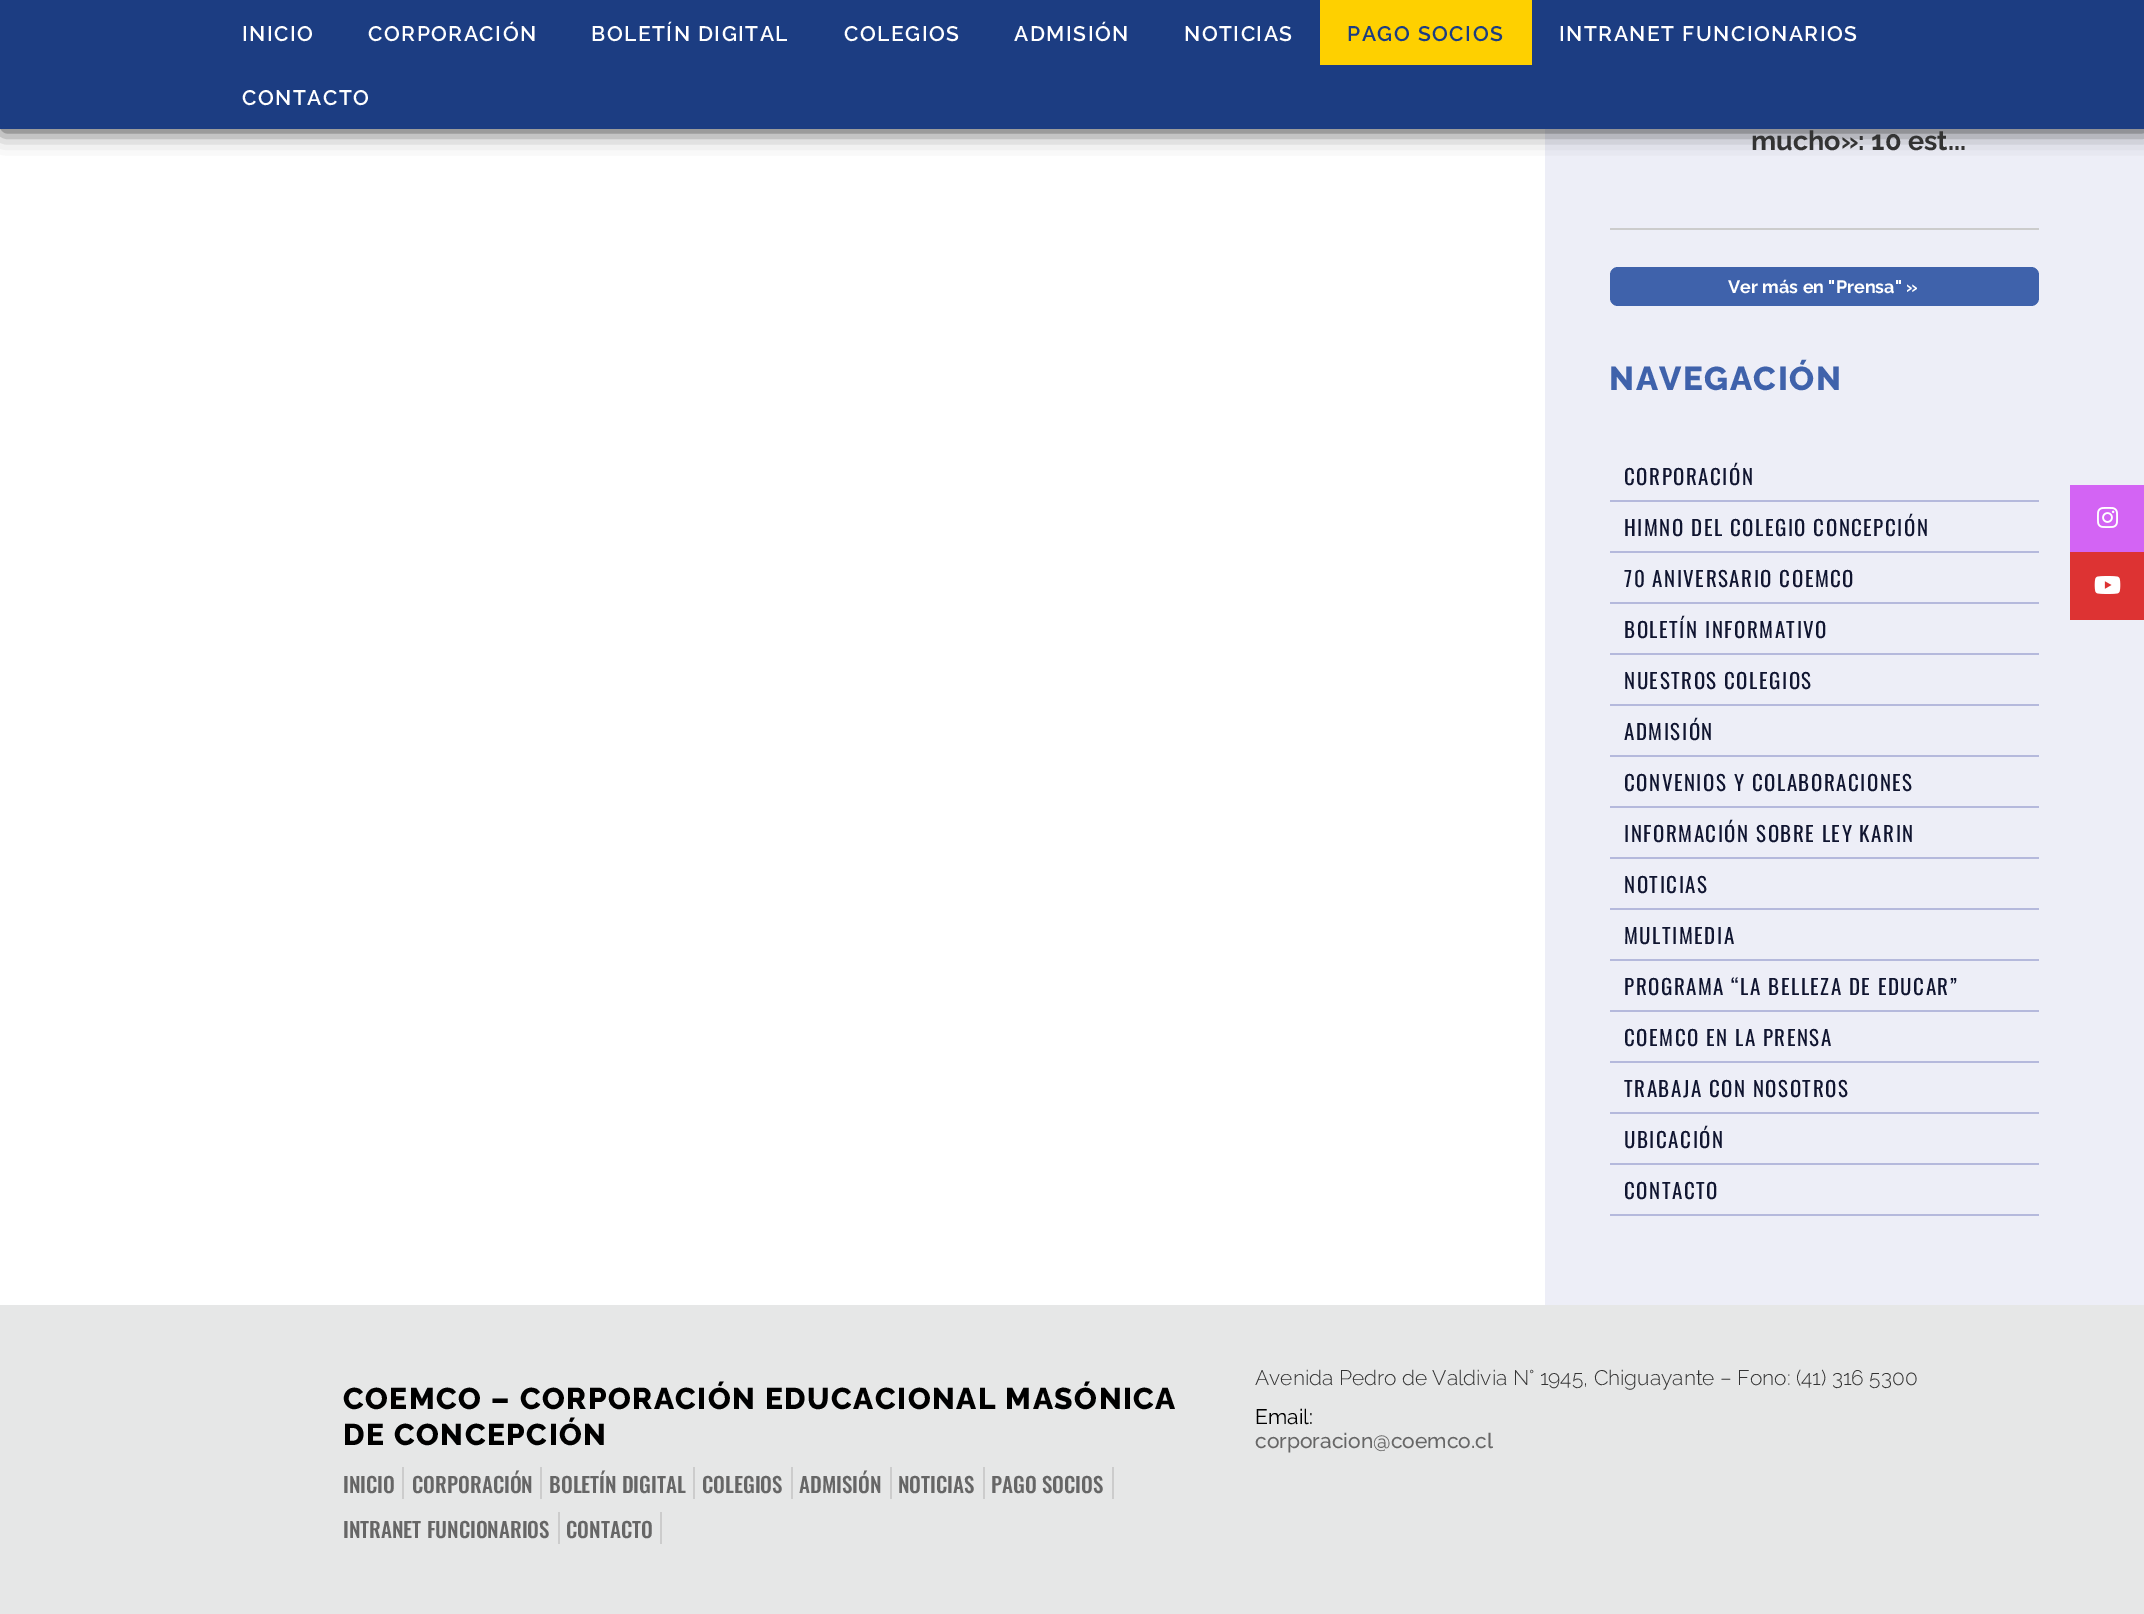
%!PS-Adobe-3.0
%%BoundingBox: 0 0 2144 1614
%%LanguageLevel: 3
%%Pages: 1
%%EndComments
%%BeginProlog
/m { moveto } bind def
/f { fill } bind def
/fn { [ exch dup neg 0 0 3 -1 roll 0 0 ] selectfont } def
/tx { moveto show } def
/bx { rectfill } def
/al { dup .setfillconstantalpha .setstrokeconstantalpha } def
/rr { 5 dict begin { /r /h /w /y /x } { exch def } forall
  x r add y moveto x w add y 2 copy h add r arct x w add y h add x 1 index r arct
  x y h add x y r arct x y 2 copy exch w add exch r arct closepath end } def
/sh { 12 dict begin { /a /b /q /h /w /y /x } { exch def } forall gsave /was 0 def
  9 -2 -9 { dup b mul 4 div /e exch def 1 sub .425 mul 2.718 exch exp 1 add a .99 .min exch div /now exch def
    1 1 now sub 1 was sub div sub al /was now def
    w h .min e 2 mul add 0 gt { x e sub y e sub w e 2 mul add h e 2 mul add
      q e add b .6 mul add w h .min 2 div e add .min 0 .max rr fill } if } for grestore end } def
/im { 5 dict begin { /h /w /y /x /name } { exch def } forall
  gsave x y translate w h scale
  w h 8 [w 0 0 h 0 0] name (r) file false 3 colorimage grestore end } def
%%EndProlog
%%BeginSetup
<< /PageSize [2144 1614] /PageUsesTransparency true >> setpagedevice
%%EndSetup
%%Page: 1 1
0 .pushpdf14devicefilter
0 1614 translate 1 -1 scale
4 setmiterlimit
1 setgray
0 0 2144 1614 bx
0.929 0.933 0.969 setrgbcolor
1545 129 599 1176 bx
0.2 setgray
2 2 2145 129 0 11 1 sh
0.11 0.239 0.51 setrgbcolor
0 0 2144 129 bx
/Raleway-SemiBold 21 fn
1 setgray
242 41 m 1.5 0 (INICIO) ashow
368 41 m 1.5 0 (CORPORACIÓN) ashow
591 41 m 1.5 0 (BOLETÍN DIGITAL) ashow
844 41 m 1.5 0 (COLEGIOS) ashow
1014 41 m 1.5 0 (ADMISIÓN) ashow
1184 41 m 1.5 0 (NOTICIAS) ashow
0.996 0.816 0 setrgbcolor
1320 0 212 65 bx
0.11 0.239 0.51 setrgbcolor
1347 41 m 1.5 0 (PAGO SOCIOS) ashow
1 setgray
1559 41 m 1.5 0 (INTRANET FUNCIONARIOS) ashow
242 105 m 1.5 0 (CONTACTO) ashow
/Raleway-Bold 27 fn
0.2 setgray
(mucho»: 10 est...) 1751 150 tx
0.8 setgray
1610 228 429 2 bx
0.247 0.384 0.671 setrgbcolor
1610 267 429 39 8 rr f
/Raleway-Bold 18 fn
1 setgray
(Ver más en "Prensa" ») 1728 293 tx
/Raleway-ExtraBold 33 fn
0.247 0.384 0.671 setrgbcolor
1609 390 m 1.5 0 (NAVEGACIÓN) ashow
0.71 0.725 0.863 setrgbcolor
1610 500 429 2 bx
/Oswald-Regular 21 fn
0.063 0.082 0.188 setrgbcolor
1624 485 m 1.5 0 (CORPORACIÓN) ashow
0.71 0.725 0.863 setrgbcolor
1610 551 429 2 bx
0.063 0.082 0.188 setrgbcolor
1624 536 m 1.5 0 (HIMNO DEL COLEGIO CONCEPCIÓN) ashow
0.71 0.725 0.863 setrgbcolor
1610 602 429 2 bx
0.063 0.082 0.188 setrgbcolor
1624 587 m 1.5 0 (70 ANIVERSARIO COEMCO) ashow
0.71 0.725 0.863 setrgbcolor
1610 653 429 2 bx
0.063 0.082 0.188 setrgbcolor
1624 638 m 1.5 0 (BOLETÍN INFORMATIVO) ashow
0.71 0.725 0.863 setrgbcolor
1610 704 429 2 bx
0.063 0.082 0.188 setrgbcolor
1624 689 m 1.5 0 (NUESTROS COLEGIOS) ashow
0.71 0.725 0.863 setrgbcolor
1610 755 429 2 bx
0.063 0.082 0.188 setrgbcolor
1624 740 m 1.5 0 (ADMISIÓN) ashow
0.71 0.725 0.863 setrgbcolor
1610 806 429 2 bx
0.063 0.082 0.188 setrgbcolor
1624 791 m 1.5 0 (CONVENIOS Y COLABORACIONES) ashow
0.71 0.725 0.863 setrgbcolor
1610 857 429 2 bx
0.063 0.082 0.188 setrgbcolor
1624 842 m 1.5 0 (INFORMACIÓN SOBRE LEY KARIN) ashow
0.71 0.725 0.863 setrgbcolor
1610 908 429 2 bx
0.063 0.082 0.188 setrgbcolor
1624 893 m 1.5 0 (NOTICIAS) ashow
0.71 0.725 0.863 setrgbcolor
1610 959 429 2 bx
0.063 0.082 0.188 setrgbcolor
1624 944 m 1.5 0 (MULTIMEDIA) ashow
0.71 0.725 0.863 setrgbcolor
1610 1010 429 2 bx
0.063 0.082 0.188 setrgbcolor
1624 995 m 1.5 0 (PROGRAMA “LA BELLEZA DE EDUCAR”) ashow
0.71 0.725 0.863 setrgbcolor
1610 1061 429 2 bx
0.063 0.082 0.188 setrgbcolor
1624 1046 m 1.5 0 (COEMCO EN LA PRENSA) ashow
0.71 0.725 0.863 setrgbcolor
1610 1112 429 2 bx
0.063 0.082 0.188 setrgbcolor
1624 1097 m 1.5 0 (TRABAJA CON NOSOTROS) ashow
0.71 0.725 0.863 setrgbcolor
1610 1163 429 2 bx
0.063 0.082 0.188 setrgbcolor
1624 1148 m 1.5 0 (UBICACIÓN) ashow
0.71 0.725 0.863 setrgbcolor
1610 1214 429 2 bx
0.063 0.082 0.188 setrgbcolor
1624 1199 m 1.5 0 (CONTACTO) ashow
0.827 0.392 0.957 setrgbcolor
2070 485 74 67 bx
(image0.raw) 2097 507 21 21 im
0.867 0.2 0.2 setrgbcolor
2070 552 74 68 bx
(image1.raw) 2094 576 27 18 im
0.902 0.906 0.906 setrgbcolor
0 1305 2144 309 bx
/Raleway-ExtraBold 30 fn
0 setgray
343 1409 m 1.5 0 (COEMCO – CORPORACIÓN EDUCACIONAL MASÓNICA) ashow
343 1445 m 1.5 0 (DE CONCEPCIÓN) ashow
0.8 setgray
402 1467 2 32 bx
/Oswald-Medium 21 fn
0.4 setgray
(INICIO) 343 1493 tx
0.8 setgray
540 1467 2 32 bx
0.4 setgray
(CORPORACIÓN) 412 1493 tx
0.8 setgray
693 1467 2 32 bx
0.4 setgray
(BOLETÍN DIGITAL) 549 1493 tx
0.8 setgray
791 1467 2 32 bx
0.4 setgray
(COLEGIOS) 702 1493 tx
0.8 setgray
890 1467 2 32 bx
0.4 setgray
(ADMISIÓN) 799 1493 tx
0.8 setgray
983 1467 2 32 bx
0.4 setgray
(NOTICIAS) 898 1493 tx
0.8 setgray
1112 1467 2 32 bx
0.4 setgray
(PAGO SOCIOS) 991 1493 tx
0.8 setgray
558 1512 2 32 bx
0.4 setgray
(INTRANET FUNCIONARIOS) 343 1538 tx
0.8 setgray
660 1512 2 32 bx
0.4 setgray
(CONTACTO) 566 1538 tx
/Raleway-Light 21 fn
0.2 setgray
(Avenida Pedro de Valdivia N° 1945, Chiguayante – Fono: \(41\) 316 5300) 1255 1385 tx
/Raleway-Regular 21 fn
0 setgray
(Email:) 1255 1424 tx
/Raleway-Medium 21 fn
0.4 setgray
(corporacion@coemco.cl) 1255 1448 tx
.poppdf14devicefilter showpage
%%EOF
